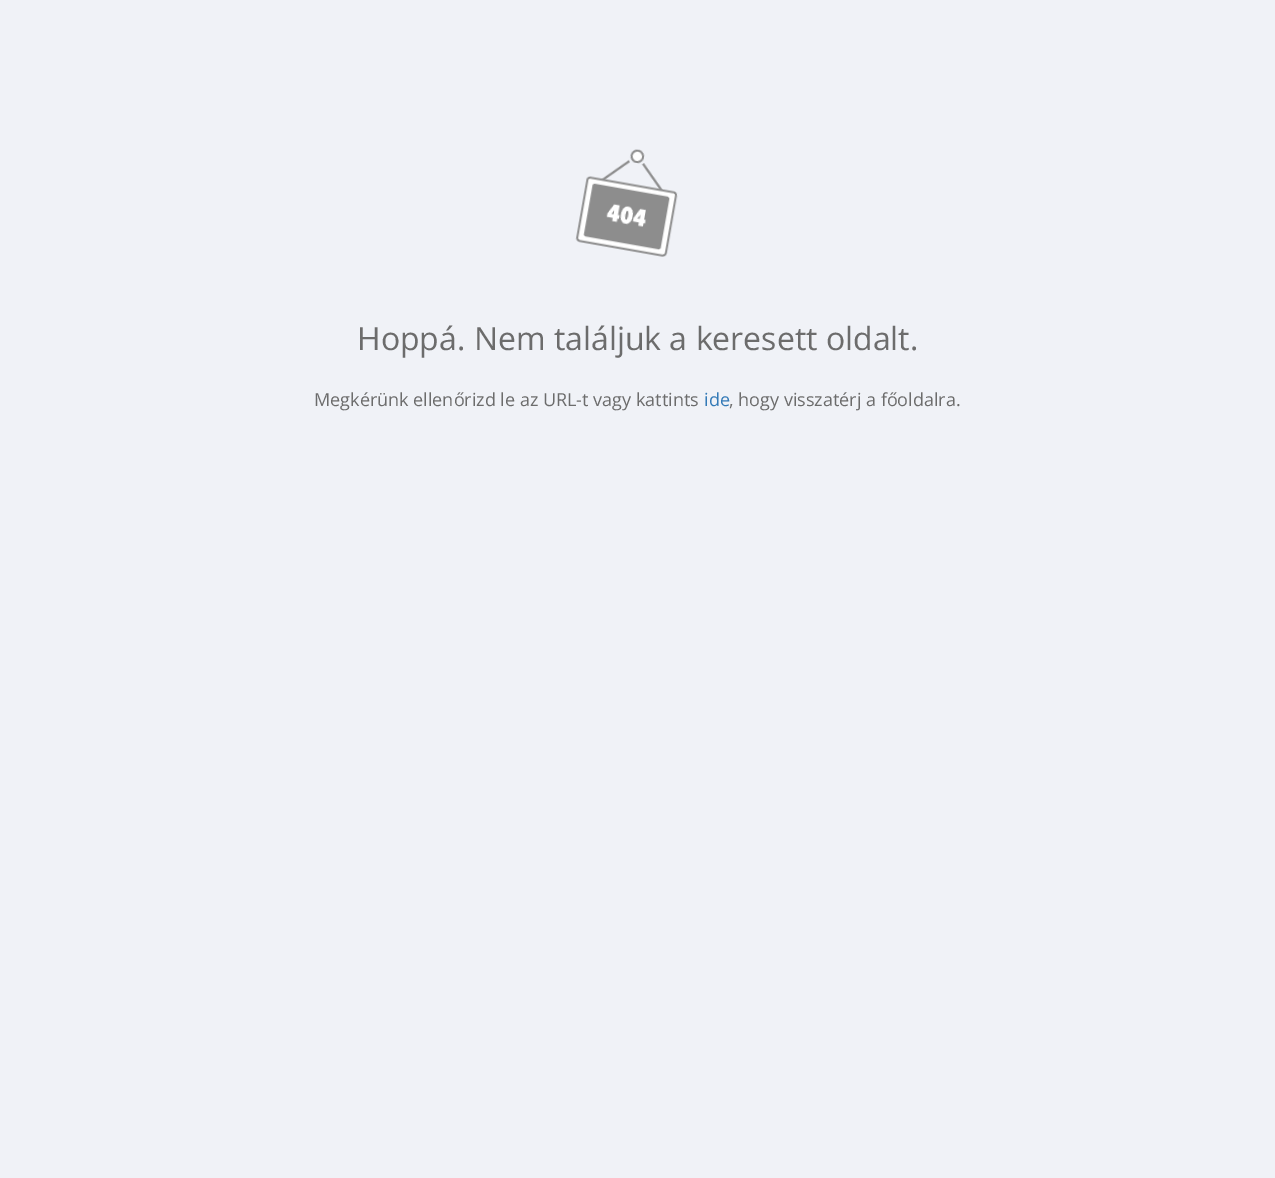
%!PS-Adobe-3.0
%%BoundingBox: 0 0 1275 1178
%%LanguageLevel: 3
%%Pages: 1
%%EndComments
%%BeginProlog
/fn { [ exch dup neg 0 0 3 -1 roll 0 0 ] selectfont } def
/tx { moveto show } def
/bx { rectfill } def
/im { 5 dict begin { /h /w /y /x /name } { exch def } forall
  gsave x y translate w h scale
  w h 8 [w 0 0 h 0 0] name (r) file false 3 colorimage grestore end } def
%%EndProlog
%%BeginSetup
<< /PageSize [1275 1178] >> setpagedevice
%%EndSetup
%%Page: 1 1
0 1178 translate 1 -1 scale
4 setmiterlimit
0.941 0.949 0.969 setrgbcolor
0 0 1275 1178 bx
(image0.raw) 575 149 103 108 im
/OpenSans-Regular 32 fn
0.424 setgray
(Hoppá. Nem találjuk a keresett oldalt.) 357 350 tx
/OpenSans-Regular 18 fn
(Megkérünk ellenőrizd le az URL-t vagy kattints) 314 406 tx
0.2 0.478 0.718 setrgbcolor
(ide) 704 406 tx
0.424 setgray
(, hogy visszatérj a főoldalra.) 729 406 tx
showpage
%%EOF
